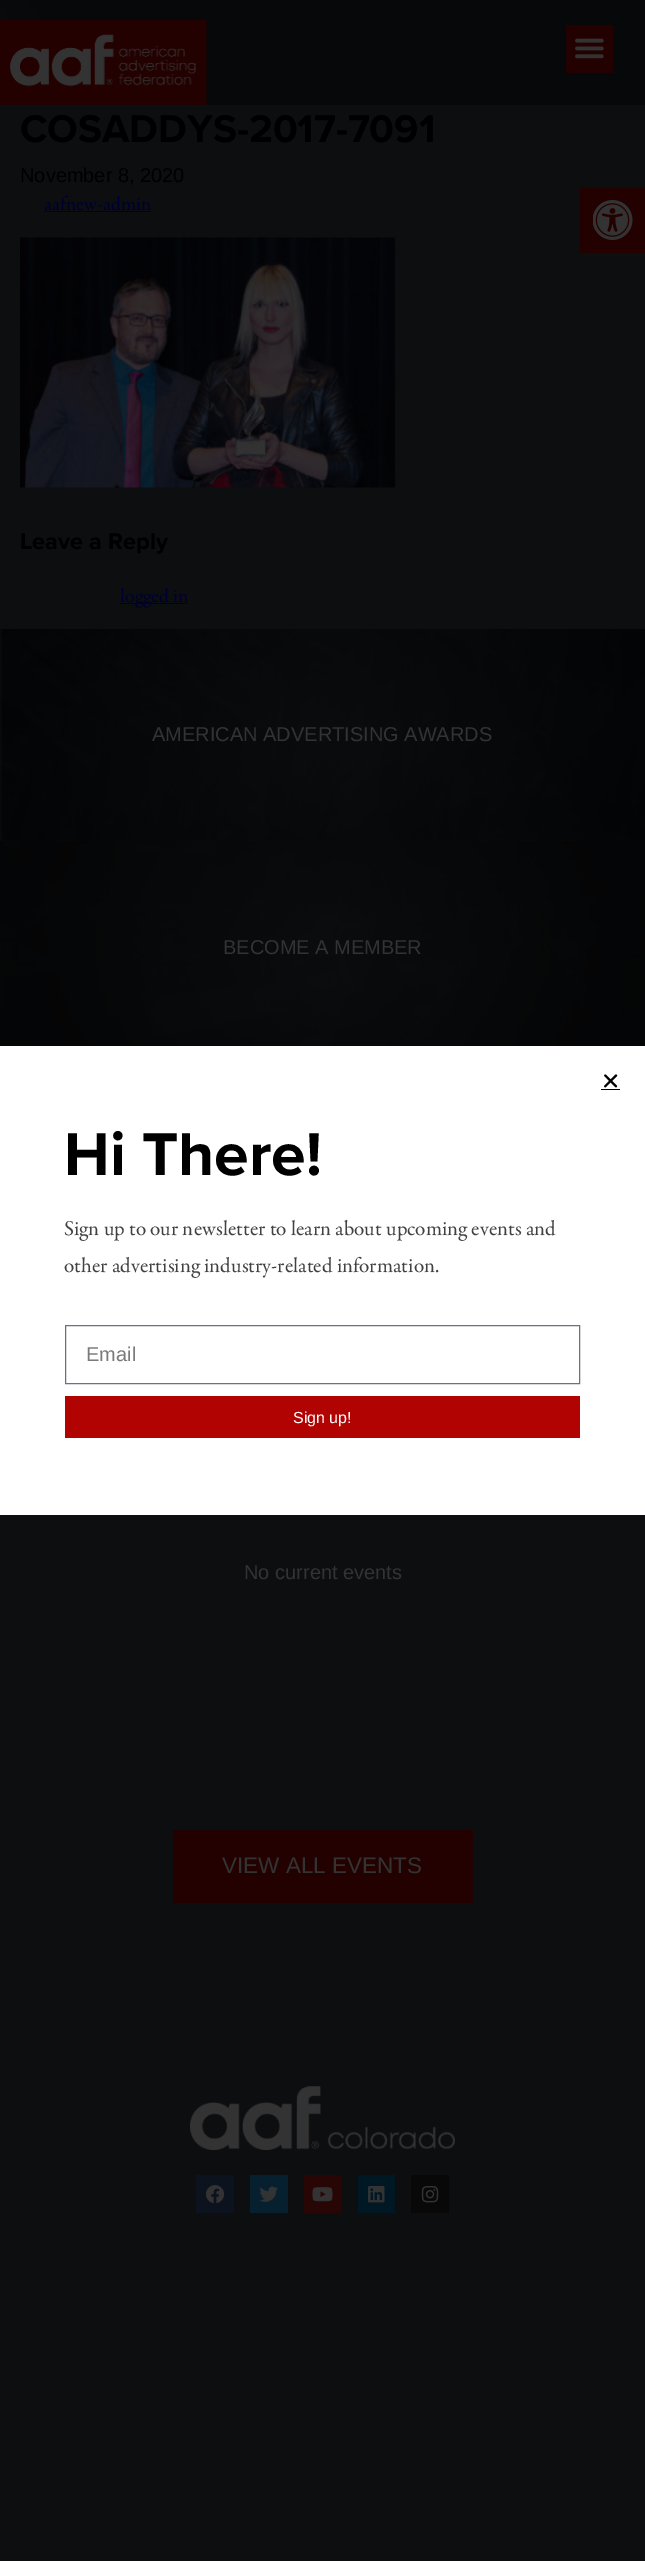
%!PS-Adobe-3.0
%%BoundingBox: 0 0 645 2561
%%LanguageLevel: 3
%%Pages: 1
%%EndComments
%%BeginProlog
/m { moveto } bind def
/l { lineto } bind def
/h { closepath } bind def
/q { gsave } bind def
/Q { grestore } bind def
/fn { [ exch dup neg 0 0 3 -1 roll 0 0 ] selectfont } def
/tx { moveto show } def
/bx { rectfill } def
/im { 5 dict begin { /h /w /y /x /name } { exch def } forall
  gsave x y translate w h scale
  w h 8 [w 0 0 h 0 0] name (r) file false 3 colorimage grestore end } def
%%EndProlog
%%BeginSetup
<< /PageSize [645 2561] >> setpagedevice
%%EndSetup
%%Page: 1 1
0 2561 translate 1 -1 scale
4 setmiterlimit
0.047 0.055 0.063 setrgbcolor
0 0 645 2561 bx
q 0 0 m 645 0 l 645 105 l 0 105 l h clip newpath
<< /ShadingType 2 /ColorSpace /DeviceRGB /Coords [58 205 587 -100] /Extend [true true] /Function << /FunctionType 3 /Domain [0 1] /Functions [<< /FunctionType 2 /Domain [0 1] /C0 [0.039 0.047 0.055] /C1 [0.027 0.031 0.039] /N 1 >> << /FunctionType 2 /Domain [0 1] /C0 [0.027 0.031 0.039] /C1 [0.027 0.031 0.039] /N 1 >>] /Bounds [0.2] /Encode [0 1 0 1] >> >> shfill Q
(image0.raw) 0 20 207 85 im
0.141 0.004 0.004 setrgbcolor
566 25 47 48 bx
(image1.raw) 575 38 29 21 im
/ProximaNova-Bold 40 fn
0 setgray
(COSADDYS-2017-7091) 20 142 tx
/LiberationSans-Regular 20 fn
(November 8, 2020) 20 182 tx
/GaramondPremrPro-Regular 20 fn
0 0 0.188 setrgbcolor
(aafnew-admin) 44 210 tx
44 211 107 1 bx
(image2.raw) 20 237 375 251 im
/ProximaNova-Bold 23.5 fn
0 setgray
(Leave a Reply) 20 549 tx
0 0 0.188 setrgbcolor
120 603 68 1 bx
/GaramondPremrPro-Regular 20 fn
(logged in) 120 602 tx
0.141 0.004 0.004 setrgbcolor
580 188 65 65 bx
(image3.raw) 593 200 40 40 im
(image4.raw) 0 629 645 212 im
/LiberationSans-Regular 20 fn
0.2 setgray
(AMERICAN ADVERTISING AWARDS) 152 741 tx
(image5.raw) 0 841 645 205 im
(BECOME A MEMBER) 223 954 tx
(No current events) 244 1579 tx
0.141 0.004 0.004 setrgbcolor
173 1830 300 73 bx
/LiberationSans-Regular 22.5 fn
0.2 setgray
(VIEW ALL EVENTS) 222 1873 tx
(image6.raw) 190 2086 265 64 im
0.047 0.071 0.118 setrgbcolor
196 2175 38 38 bx
(image7.raw) 205 2185 20 19 im
0.024 0.125 0.188 setrgbcolor
250 2175 38 38 bx
(image8.raw) 259 2186 19 16 im
0.161 0.024 0.024 setrgbcolor
304 2175 37 38 bx
(image9.raw) 312 2187 21 15 im
0 0.094 0.141 setrgbcolor
358 2175 37 38 bx
(image10.raw) 368 2186 17 17 im
0.031 setgray
411 2175 38 38 bx
(image11.raw) 421 2186 18 17 im
1 setgray
0 1046 645 469 bx
(image12.raw) 604 1074 14 14 im
0 setgray
601 1089 19 1 bx
/ProximaNova-Bold 62.5 fn
(Hi There!) 64 1175 tx
/GaramondPremrPro-Regular 21.25 fn
0.255 setgray
(Sign up to our newsletter to learn about upcoming events and) 64 1235 tx
(other advertising industry-related information.) 64 1272 tx
0.412 0.447 0.49 setrgbcolor
65.5 1325.5 514 58 rectstroke
/LiberationSans-Regular 20 fn
0.475 0.478 0.486 setrgbcolor
(Email) 86 1361 tx
0.698 0.012 0.012 setrgbcolor
65 1396 515 42 bx
/LiberationSans-Regular 16 fn
1 setgray
(Sign up!) 293 1423 tx
showpage
%%EOF
